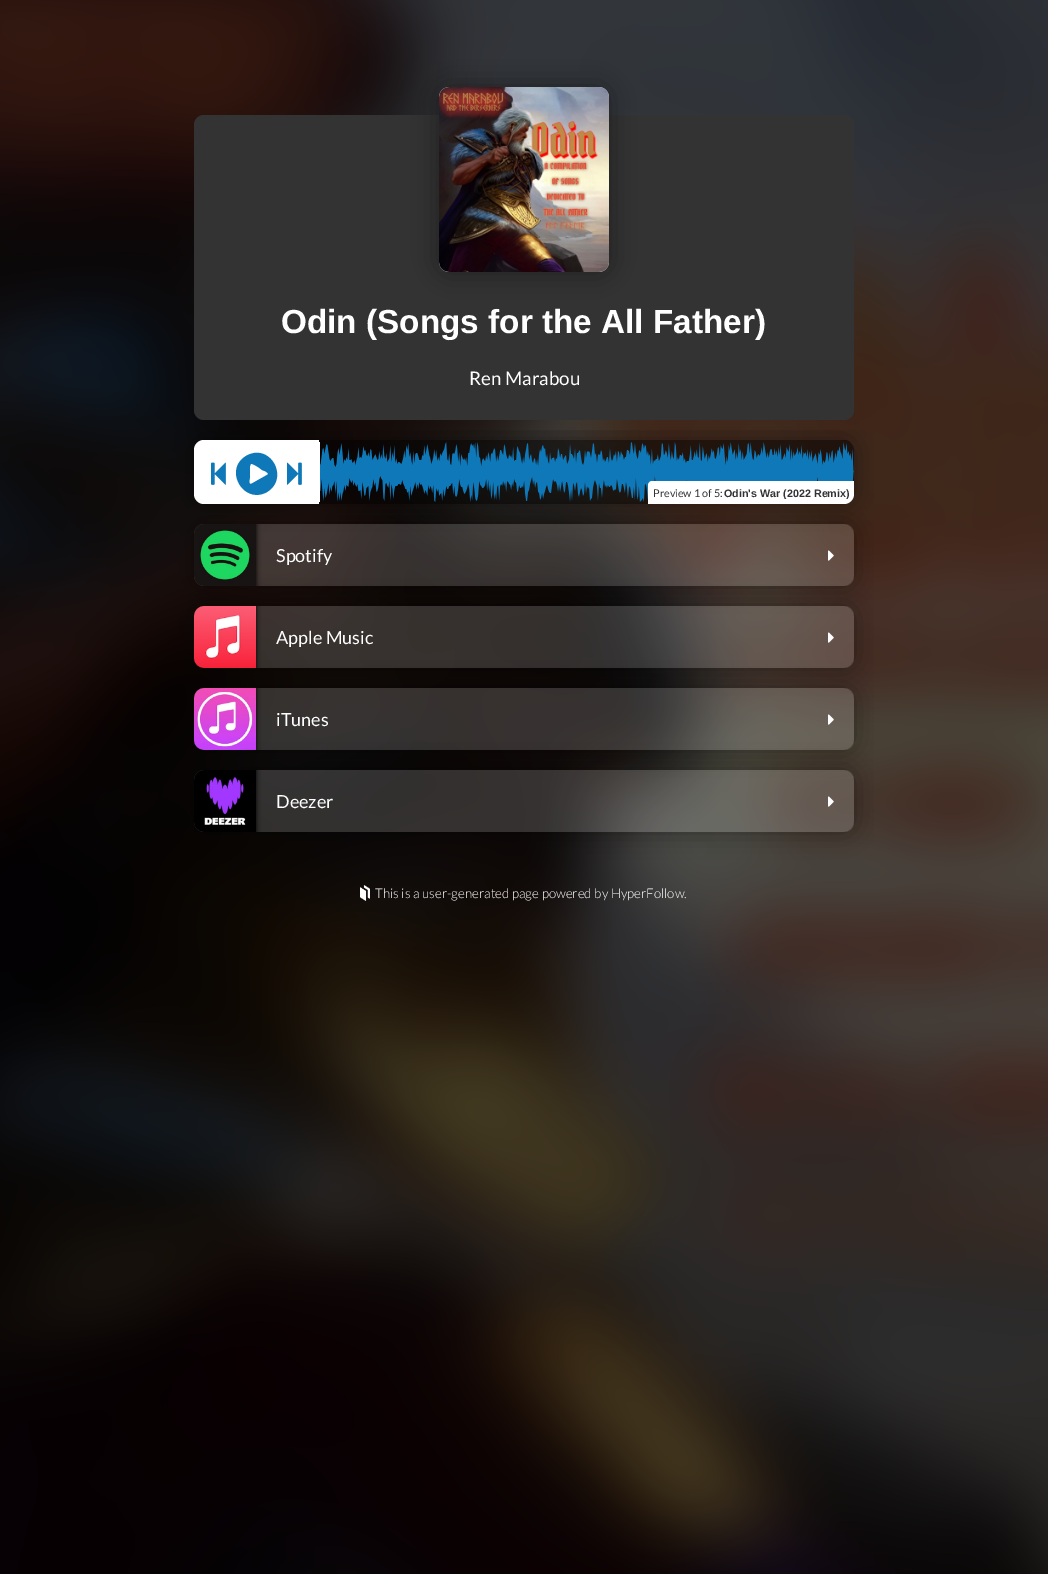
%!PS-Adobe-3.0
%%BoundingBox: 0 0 1048 1574
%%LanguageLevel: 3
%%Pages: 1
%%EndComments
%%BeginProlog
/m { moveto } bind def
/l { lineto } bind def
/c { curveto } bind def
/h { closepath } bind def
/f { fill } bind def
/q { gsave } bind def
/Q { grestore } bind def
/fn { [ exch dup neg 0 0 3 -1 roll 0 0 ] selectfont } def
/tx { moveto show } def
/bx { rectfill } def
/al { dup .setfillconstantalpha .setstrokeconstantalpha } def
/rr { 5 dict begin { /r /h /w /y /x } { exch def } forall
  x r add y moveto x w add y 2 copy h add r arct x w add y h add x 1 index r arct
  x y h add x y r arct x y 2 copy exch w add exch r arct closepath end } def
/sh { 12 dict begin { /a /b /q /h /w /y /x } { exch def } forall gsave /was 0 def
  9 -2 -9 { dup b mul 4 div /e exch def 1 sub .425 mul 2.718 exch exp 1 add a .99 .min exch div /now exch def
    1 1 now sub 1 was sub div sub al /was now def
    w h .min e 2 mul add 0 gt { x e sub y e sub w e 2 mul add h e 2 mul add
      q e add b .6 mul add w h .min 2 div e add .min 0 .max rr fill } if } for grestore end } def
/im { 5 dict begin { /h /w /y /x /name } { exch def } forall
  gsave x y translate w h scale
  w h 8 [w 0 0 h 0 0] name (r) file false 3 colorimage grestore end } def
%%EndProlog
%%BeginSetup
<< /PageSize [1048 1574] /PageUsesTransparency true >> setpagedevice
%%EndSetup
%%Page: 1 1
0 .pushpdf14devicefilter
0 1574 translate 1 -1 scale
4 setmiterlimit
0 setgray
0 0 1048 1574 bx
(image0.raw) 0 0 1048 1574 im
0.2 setgray
194 115 660 305 10 rr f
0 setgray
439 87 170 185 10 12.5 0.35 sh
0.8 setgray
439 87 170 185 10 rr f
(image1.raw) 439 87 170 185 im
/LiberationSans-Bold 33.3 fn
1 setgray
(Odin \(Songs for the All Father\)) 281 333 tx
/Lato-Regular 18.75 fn
(Ren Marabou) 469 385 tx
q
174 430 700 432 rectclip
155 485 m 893 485 l 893 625 l 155 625 l h 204 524 m 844 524 l 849.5 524 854 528.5 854 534 c 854 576 l 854 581.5 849.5 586 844 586 c 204 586 l 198.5 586 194 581.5 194 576 c 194 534 l 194 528.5 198.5 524 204 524 c h eoclip newpath
0 setgray
194 524 660 62 10 12.5 0.35 sh
Q
0.17 al
194 524 660 62 10 rr f
q
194 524 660 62 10 rr clip newpath
1 al
0 setgray
194 524 62 62 0 2.5 1 sh
Q
1 al
(image5.raw) 194 524 62 62 im
q
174 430 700 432 rectclip
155 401 m 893 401 l 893 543 l 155 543 l h 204 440 m 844 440 l 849.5 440 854 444.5 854 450 c 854 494 l 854 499.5 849.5 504 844 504 c 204 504 l 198.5 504 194 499.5 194 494 c 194 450 l 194 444.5 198.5 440 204 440 c h eoclip newpath
0 setgray
194 440 660 64 10 12.5 0.35 sh
Q
204 440 m 319 440 l 319 504 l 204 504 l 198.5 504 194 499.5 194 494 c 194 450 l 194 444.5 198.5 440 204 440 c h f
(image2.raw) 211 462 15 23 im
0.059 0.471 0.722 setrgbcolor
246 456 m 270 442 290 478 267 492 c 244 505 223 470 246 456 c h 267 475 m 271 473 262 470 262 470 c 260 468 252 463 251 464 c 249 465 250 475 250 477 c 250 478 248 484 251 484 c h f
(image3.raw) 287 462 15 23 im
0.5 al
0 setgray
319 440 m 844 440 l 849.5 440 854 444.5 854 450 c 854 494 l 854 499.5 849.5 504 844 504 c 319 504 l h f
1 al
1 setgray
319 442 1 60 bx
(image4.raw) 320 442 534 60 im
652 481 m 854 481 l 854 494 l 854 499.5 849.5 504 844 504 c 648 504 l 648 485 l 648 483 650 481 652 481 c h f
/Lato-Regular 10.75 fn
0.2 setgray
(Preview 1 of 5:) 653 497 tx
q
653 486 196 13 rectclip
/LiberationSans-Bold 10.75 fn
(Odin's War \(2022 Remix\)) 724 497 tx
Q
/Lato-Regular 18 fn
1 setgray
(Spotify) 276 562 tx
(image6.raw) 828 550 6 11 im
q
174 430 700 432 rectclip
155 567 m 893 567 l 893 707 l 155 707 l h 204 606 m 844 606 l 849.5 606 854 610.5 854 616 c 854 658 l 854 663.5 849.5 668 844 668 c 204 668 l 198.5 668 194 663.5 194 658 c 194 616 l 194 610.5 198.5 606 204 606 c h eoclip newpath
0 setgray
194 606 660 62 10 12.5 0.35 sh
Q
0.17 al
194 606 660 62 10 rr f
q
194 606 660 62 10 rr clip newpath
1 al
0 setgray
194 606 62 62 0 2.5 1 sh
Q
1 al
(image7.raw) 194 606 62 62 im
(Apple Music) 276 644 tx
(image8.raw) 828 632 6 11 im
q
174 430 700 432 rectclip
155 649 m 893 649 l 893 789 l 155 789 l h 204 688 m 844 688 l 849.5 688 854 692.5 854 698 c 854 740 l 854 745.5 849.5 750 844 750 c 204 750 l 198.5 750 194 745.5 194 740 c 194 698 l 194 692.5 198.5 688 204 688 c h eoclip newpath
0 setgray
194 688 660 62 10 12.5 0.35 sh
Q
0.17 al
194 688 660 62 10 rr f
q
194 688 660 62 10 rr clip newpath
1 al
0 setgray
194 688 62 62 0 2.5 1 sh
Q
1 al
(image9.raw) 194 688 62 62 im
(iTunes) 276 726 tx
(image10.raw) 828 714 6 11 im
q
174 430 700 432 rectclip
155 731 m 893 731 l 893 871 l 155 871 l h 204 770 m 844 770 l 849.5 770 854 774.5 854 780 c 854 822 l 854 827.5 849.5 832 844 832 c 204 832 l 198.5 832 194 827.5 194 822 c 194 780 l 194 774.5 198.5 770 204 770 c h eoclip newpath
0 setgray
194 770 660 62 10 12.5 0.35 sh
Q
0.17 al
194 770 660 62 10 rr f
q
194 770 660 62 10 rr clip newpath
1 al
0 setgray
194 770 62 62 0 2.5 1 sh
Q
1 al
(image11.raw) 194 770 62 62 im
(Deezer) 276 808 tx
(image12.raw) 828 796 6 11 im
(image13.raw) 360 885 10 16 im
/Lato-Light 13.3 fn
(This is a user-generated page powered by HyperFollow.) 375 898 tx
.poppdf14devicefilter showpage
%%EOF
